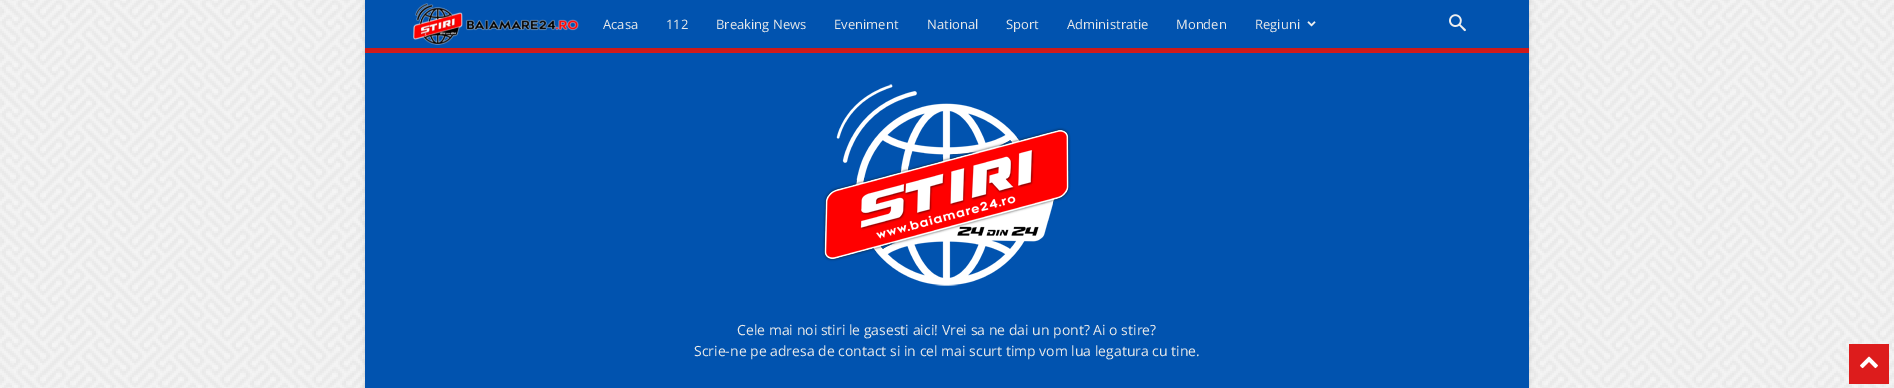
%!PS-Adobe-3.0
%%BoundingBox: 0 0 1894 388
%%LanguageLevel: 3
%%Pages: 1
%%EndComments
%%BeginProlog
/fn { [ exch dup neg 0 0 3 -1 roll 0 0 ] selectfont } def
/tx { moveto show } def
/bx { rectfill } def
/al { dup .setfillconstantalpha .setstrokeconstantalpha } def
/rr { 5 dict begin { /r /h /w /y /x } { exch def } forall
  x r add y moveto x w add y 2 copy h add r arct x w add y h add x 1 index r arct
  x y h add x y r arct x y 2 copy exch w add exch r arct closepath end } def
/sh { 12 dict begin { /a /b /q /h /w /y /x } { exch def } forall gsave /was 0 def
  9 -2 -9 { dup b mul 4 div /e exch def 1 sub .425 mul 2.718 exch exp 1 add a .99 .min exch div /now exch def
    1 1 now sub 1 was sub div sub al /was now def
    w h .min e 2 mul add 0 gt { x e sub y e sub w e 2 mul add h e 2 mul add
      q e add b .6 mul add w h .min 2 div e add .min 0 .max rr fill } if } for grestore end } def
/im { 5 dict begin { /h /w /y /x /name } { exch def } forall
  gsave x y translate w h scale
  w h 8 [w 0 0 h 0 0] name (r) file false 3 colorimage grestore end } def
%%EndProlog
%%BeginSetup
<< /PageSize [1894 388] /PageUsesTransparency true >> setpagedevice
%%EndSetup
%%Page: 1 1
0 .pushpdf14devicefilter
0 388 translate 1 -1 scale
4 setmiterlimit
1 setgray
0 0 1894 388 bx
(image0.raw) 0 0 1894 388 im
0 setgray
365 -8 1164 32 0 2.5 0.12 sh
365 24 1164 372 0 2.5 0.12 sh
0.004 0.325 0.686 setrgbcolor
365 0 1164 48 bx
(image1.raw) 413 3 166 42 im
/OpenSans-Regular 13 fn
0.918 setgray
(Acasa) 603 29 tx
(112) 666 29 tx
(Breaking News) 716 29 tx
(Eveniment) 834 29 tx
(National) 927 29 tx
(Sport) 1006 29 tx
(Administratie) 1067 29 tx
(Monden) 1176 29 tx
(Regiuni) 1255 29 tx
(image2.raw) 1307 21 9 6 im
(image3.raw) 1449 14 17 18 im
0.867 0.11 0.11 setrgbcolor
365 48 1164 5 bx
(image4.raw) 365 48 1164 5 im
0.004 0.325 0.686 setrgbcolor
365 53 1164 335 bx
(image5.raw) 822 84 249 202 im
/OpenSans-Regular 14 fn
0.918 setgray
(Cele mai noi stiri le gasesti aici! Vrei sa ne dai un pont? Ai o stire?) 737 335 tx
(Scrie-ne pe adresa de contact si in cel mai scurt timp vom lua legatura cu tine.) 694 356 tx
0.867 0.11 0.11 setrgbcolor
1849 344 40 40 bx
(image6.raw) 1860 356 18 13 im
.poppdf14devicefilter showpage
%%EOF
